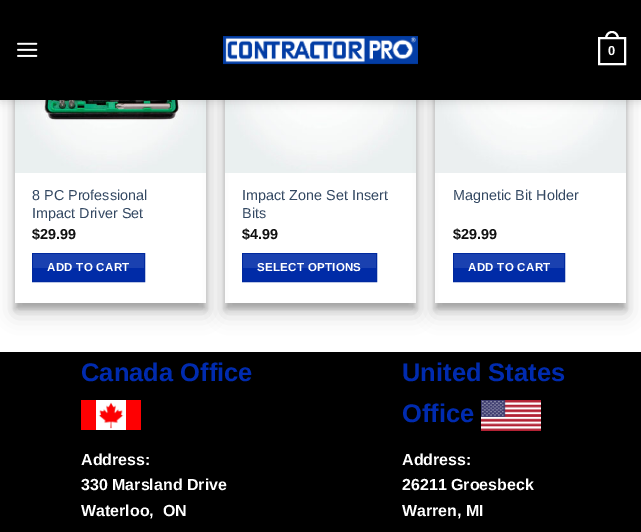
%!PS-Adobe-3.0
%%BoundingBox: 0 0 641 532
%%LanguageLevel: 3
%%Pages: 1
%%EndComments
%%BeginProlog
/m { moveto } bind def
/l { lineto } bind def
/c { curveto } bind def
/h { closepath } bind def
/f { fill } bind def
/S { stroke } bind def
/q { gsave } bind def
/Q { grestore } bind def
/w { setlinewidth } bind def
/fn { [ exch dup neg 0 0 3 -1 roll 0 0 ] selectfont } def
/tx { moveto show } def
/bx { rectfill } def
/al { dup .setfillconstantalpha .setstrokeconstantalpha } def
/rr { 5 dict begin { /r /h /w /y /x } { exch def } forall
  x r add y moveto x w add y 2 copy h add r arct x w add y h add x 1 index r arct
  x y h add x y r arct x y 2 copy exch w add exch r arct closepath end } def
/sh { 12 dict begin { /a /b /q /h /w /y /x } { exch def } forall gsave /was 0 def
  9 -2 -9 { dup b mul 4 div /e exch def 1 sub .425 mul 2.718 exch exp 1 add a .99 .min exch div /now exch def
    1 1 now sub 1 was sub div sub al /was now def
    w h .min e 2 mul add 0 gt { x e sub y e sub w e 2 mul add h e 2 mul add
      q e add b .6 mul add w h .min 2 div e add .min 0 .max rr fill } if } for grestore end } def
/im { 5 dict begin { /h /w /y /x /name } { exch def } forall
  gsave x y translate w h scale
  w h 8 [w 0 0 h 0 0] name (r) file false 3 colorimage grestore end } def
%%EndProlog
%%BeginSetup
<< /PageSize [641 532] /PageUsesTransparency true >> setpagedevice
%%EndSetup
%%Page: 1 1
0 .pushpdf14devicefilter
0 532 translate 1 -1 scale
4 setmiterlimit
1 setgray
0 0 641 532 bx
q
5 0 m 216 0 l 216 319 l 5 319 l h 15 -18 m 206 -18 l 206 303 l 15 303 l h eoclip newpath
0 setgray
15 -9 191 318 0 3 0.22 sh
Q
q
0 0 m 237 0 l 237 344 l 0 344 l h 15 -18 m 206 -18 l 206 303 l 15 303 l h eoclip newpath
0 setgray
15 -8 191 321 0 10 0.19 sh
Q
(image2.raw) 15 100 191 73 im
q
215 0 m 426 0 l 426 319 l 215 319 l h 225 -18 m 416 -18 l 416 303 l 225 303 l h eoclip newpath
0 setgray
225 -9 191 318 0 3 0.22 sh
Q
q
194 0 m 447 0 l 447 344 l 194 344 l h 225 -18 m 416 -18 l 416 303 l 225 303 l h eoclip newpath
0 setgray
225 -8 191 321 0 10 0.19 sh
Q
(image3.raw) 225 100 191 73 im
q
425 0 m 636 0 l 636 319 l 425 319 l h 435 -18 m 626 -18 l 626 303 l 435 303 l h eoclip newpath
0 setgray
435 -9 191 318 0 3 0.22 sh
Q
q
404 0 m 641 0 l 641 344 l 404 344 l h 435 -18 m 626 -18 l 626 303 l 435 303 l h eoclip newpath
0 setgray
435 -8 191 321 0 10 0.19 sh
Q
(image4.raw) 435 100 191 73 im
0 setgray
1 1 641 100 0 5 0.15 sh
0 0 641 100 bx
(image0.raw) 17 42 21 15 im
(image1.raw) 223 36 195 29 im
1 setgray
2 w
599 38 26 26 rectstroke
612 31 m 616.5 31 619 35 619 39 c 605 39 l 605 35 607.5 31 612 31 c h 612 33 m 615.5 33 617 36 617 39 c 607 39 l 607 36 608.5 33 612 33 c h eofill
/LiberationSans-Bold 13 fn
(0) 608 55 tx
/LiberationSans-Regular 14.4 fn
0.2 0.282 0.384 setrgbcolor
(8 PC Professional) 32 200 tx
(Impact Driver Set) 32 218 tx
/LiberationSans-Bold 14.4 fn
0.067 setgray
($29.99) 32 239 tx
0 0.169 0.655 setrgbcolor
32.5 253.5 m 144.5 253.5 l 144.5 281.5 l 32.5 281.5 l h q f Q
0 0.161 0.624 setrgbcolor
1 w
S
0.1 al
1 setgray
33 254 111 14 bx
/LiberationSans-Bold 11.5 fn
1 al
47 271 m 0.3 0 (ADD TO CART) ashow
/LiberationSans-Regular 14.4 fn
0.2 0.282 0.384 setrgbcolor
(Impact Zone Set Insert) 242 200 tx
(Bits) 242 218 tx
/LiberationSans-Bold 14.4 fn
0.067 setgray
($4.99) 242 239 tx
0 0.169 0.655 setrgbcolor
242.5 253.5 m 376.5 253.5 l 376.5 281.5 l 242.5 281.5 l h q f Q
0 0.161 0.624 setrgbcolor
S
0.1 al
1 setgray
243 254 133 14 bx
/LiberationSans-Bold 11.5 fn
1 al
257 271 m 0.3 0 (SELECT OPTIONS) ashow
/LiberationSans-Regular 14.4 fn
0.2 0.282 0.384 setrgbcolor
(Magnetic Bit Holder) 453 200 tx
/LiberationSans-Bold 14.4 fn
0.067 setgray
($29.99) 453 239 tx
0 0.169 0.655 setrgbcolor
453.5 253.5 m 564.5 253.5 l 564.5 281.5 l 453.5 281.5 l h q f Q
0 0.161 0.624 setrgbcolor
S
0.1 al
1 setgray
454 254 110 14 bx
/LiberationSans-Bold 11.5 fn
1 al
468 271 m 0.3 0 (ADD TO CART) ashow
0 setgray
0 352 641 180 bx
/LiberationSans-Bold 25.5 fn
0 0.169 0.686 setrgbcolor
(Canada Office) 81 381 tx
(image5.raw) 81 400 60 30 im
/LiberationSans-Bold 16 fn
1 setgray
(Address:) 81 465 tx
(330 Marsland Drive) 81 490 tx
(Waterloo,) 81 516 tx
(ON) 163 516 tx
/LiberationSans-Bold 25.5 fn
0 0.169 0.686 setrgbcolor
(United States) 402 381 tx
(Office) 402 422 tx
(image6.raw) 481 400 60 31 im
/LiberationSans-Bold 16 fn
1 setgray
(Address:) 402 465 tx
(26211 Groesbeck) 402 490 tx
(Warren, MI) 402 516 tx
.poppdf14devicefilter showpage
%%EOF
